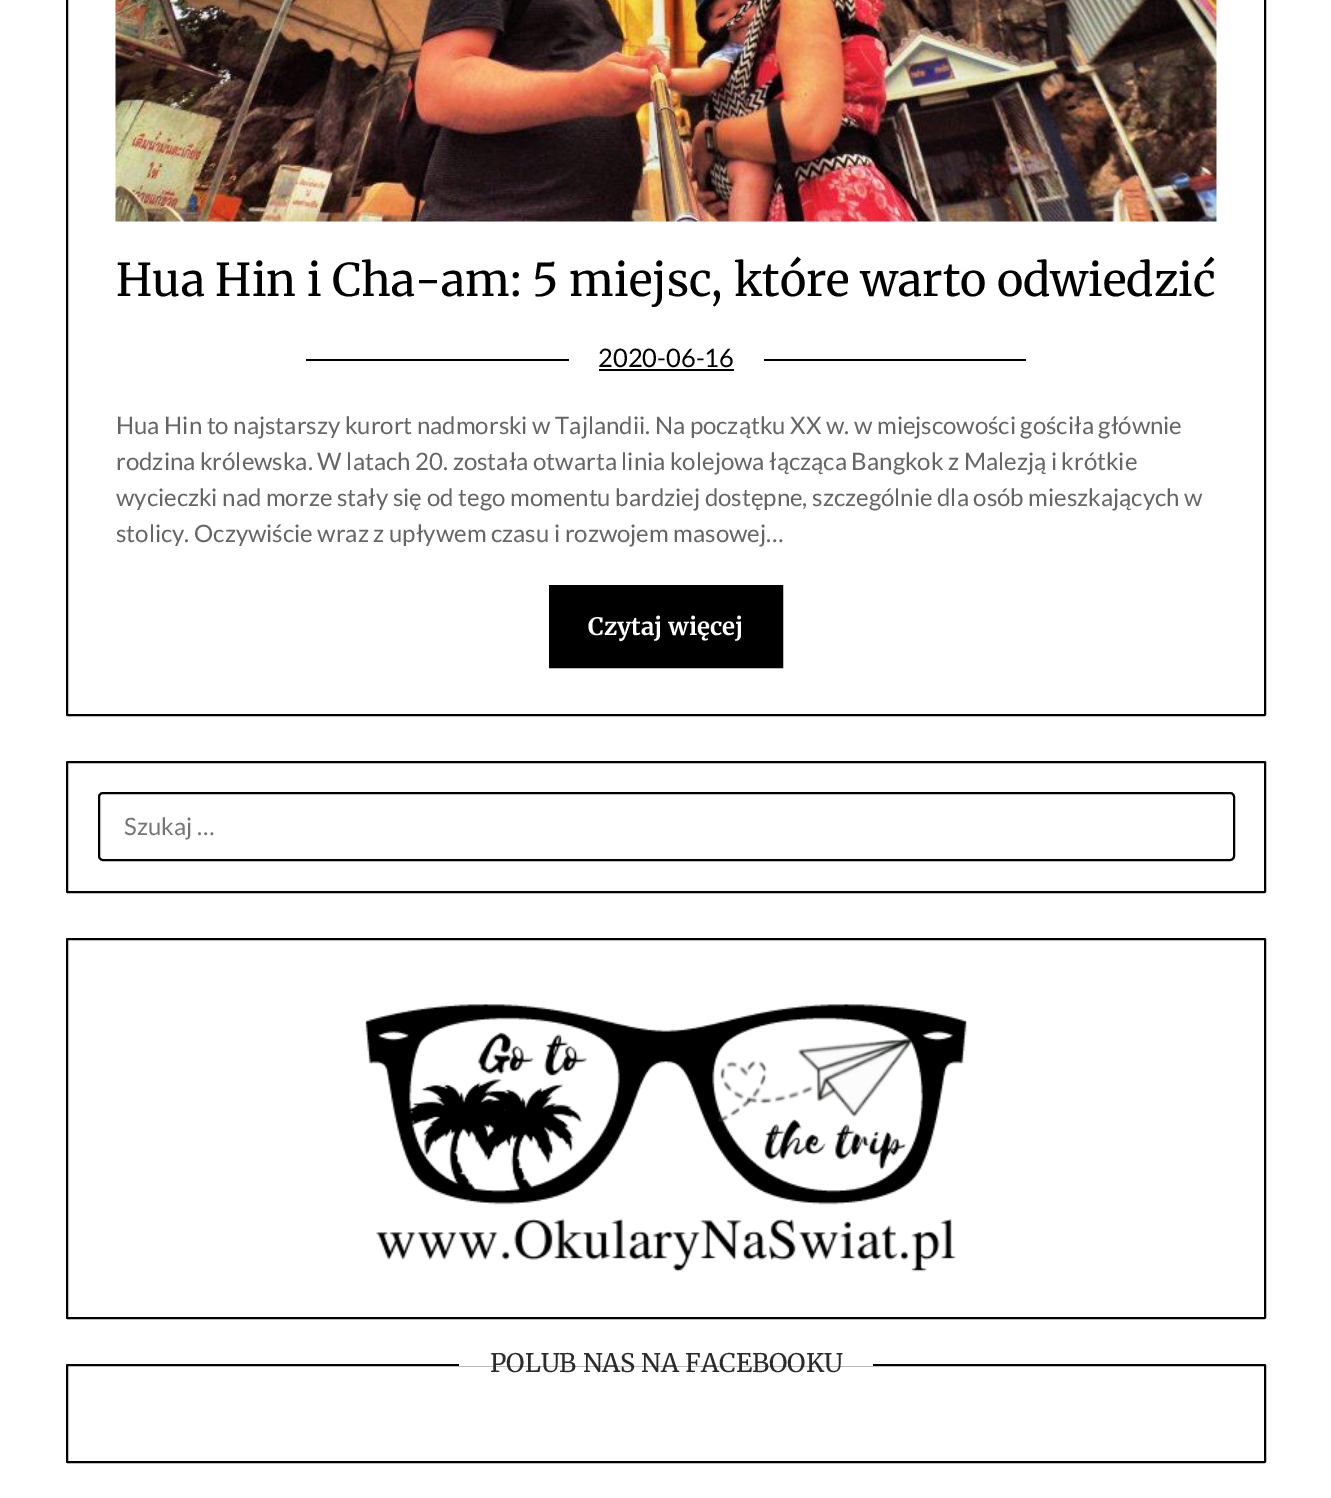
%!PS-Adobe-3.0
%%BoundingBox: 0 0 1331 1498
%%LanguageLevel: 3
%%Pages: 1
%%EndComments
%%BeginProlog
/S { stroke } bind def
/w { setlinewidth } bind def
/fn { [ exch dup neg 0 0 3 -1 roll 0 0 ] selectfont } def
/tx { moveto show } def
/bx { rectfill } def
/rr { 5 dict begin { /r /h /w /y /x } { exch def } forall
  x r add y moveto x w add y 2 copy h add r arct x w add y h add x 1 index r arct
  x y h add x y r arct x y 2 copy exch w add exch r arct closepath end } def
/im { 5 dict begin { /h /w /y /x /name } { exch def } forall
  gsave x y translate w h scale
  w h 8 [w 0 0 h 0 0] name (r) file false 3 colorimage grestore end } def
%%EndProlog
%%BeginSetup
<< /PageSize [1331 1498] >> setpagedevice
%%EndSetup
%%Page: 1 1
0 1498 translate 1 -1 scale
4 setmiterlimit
1 setgray
0 0 1331 1498 bx
0 setgray
2 w
67 -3 1198 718 0.5 rr S
(image0.raw) 115 0 1102 222 im
/Merriweather-Regular 45 fn
(Hua Hin i Cha-am: 5 miejsc, które warto odwiedzić) 116 296 tx
306 359 720 2 bx
1 setgray
569 359 195 2 bx
/Lato-Regular 25.5 fn
0 setgray
(2020-06-16) 598 367 tx
599 369 135 2 bx
/Lato-Regular 24 fn
0.396 setgray
(Hua Hin to najstarszy kurort nadmorski w Tajlandii. Na początku XX w. w miejscowości gościła głównie) 116 434 tx
(rodzina królewska. W latach 20. została otwarta linia kolejowa łącząca Bangkok z Malezją i krótkie) 116 470 tx
(wycieczki nad morze stały się od tego momentu bardziej dostępne, szczególnie dla osób mieszkających w) 116 506 tx
(stolicy. Oczywiście wraz z upływem czasu i rozwojem masowej…) 116 542 tx
0 setgray
550 586 232 81 rectstroke
551 587 230 79 bx
/Merriweather-Bold 24 fn
1 setgray
(Czytaj więcej) 588 635 tx
0 setgray
67 762 1198 130 0.5 rr S
99 793 1135 67 4 rr S
/Lato-Regular 24 fn
0.459 setgray
(Szukaj …) 124 835 tx
0 setgray
67 939 1198 379 0.5 rr S
(image1.raw) 365 1004 602 268 im
67 1365 1198 97 0.5 rr S
1 setgray
459 1364 414 2 bx
/Merriweather-Regular 25.5 fn
0.169 setgray
(POLUB NAS NA FACEBOOKU) 490 1372 tx
showpage
%%EOF
